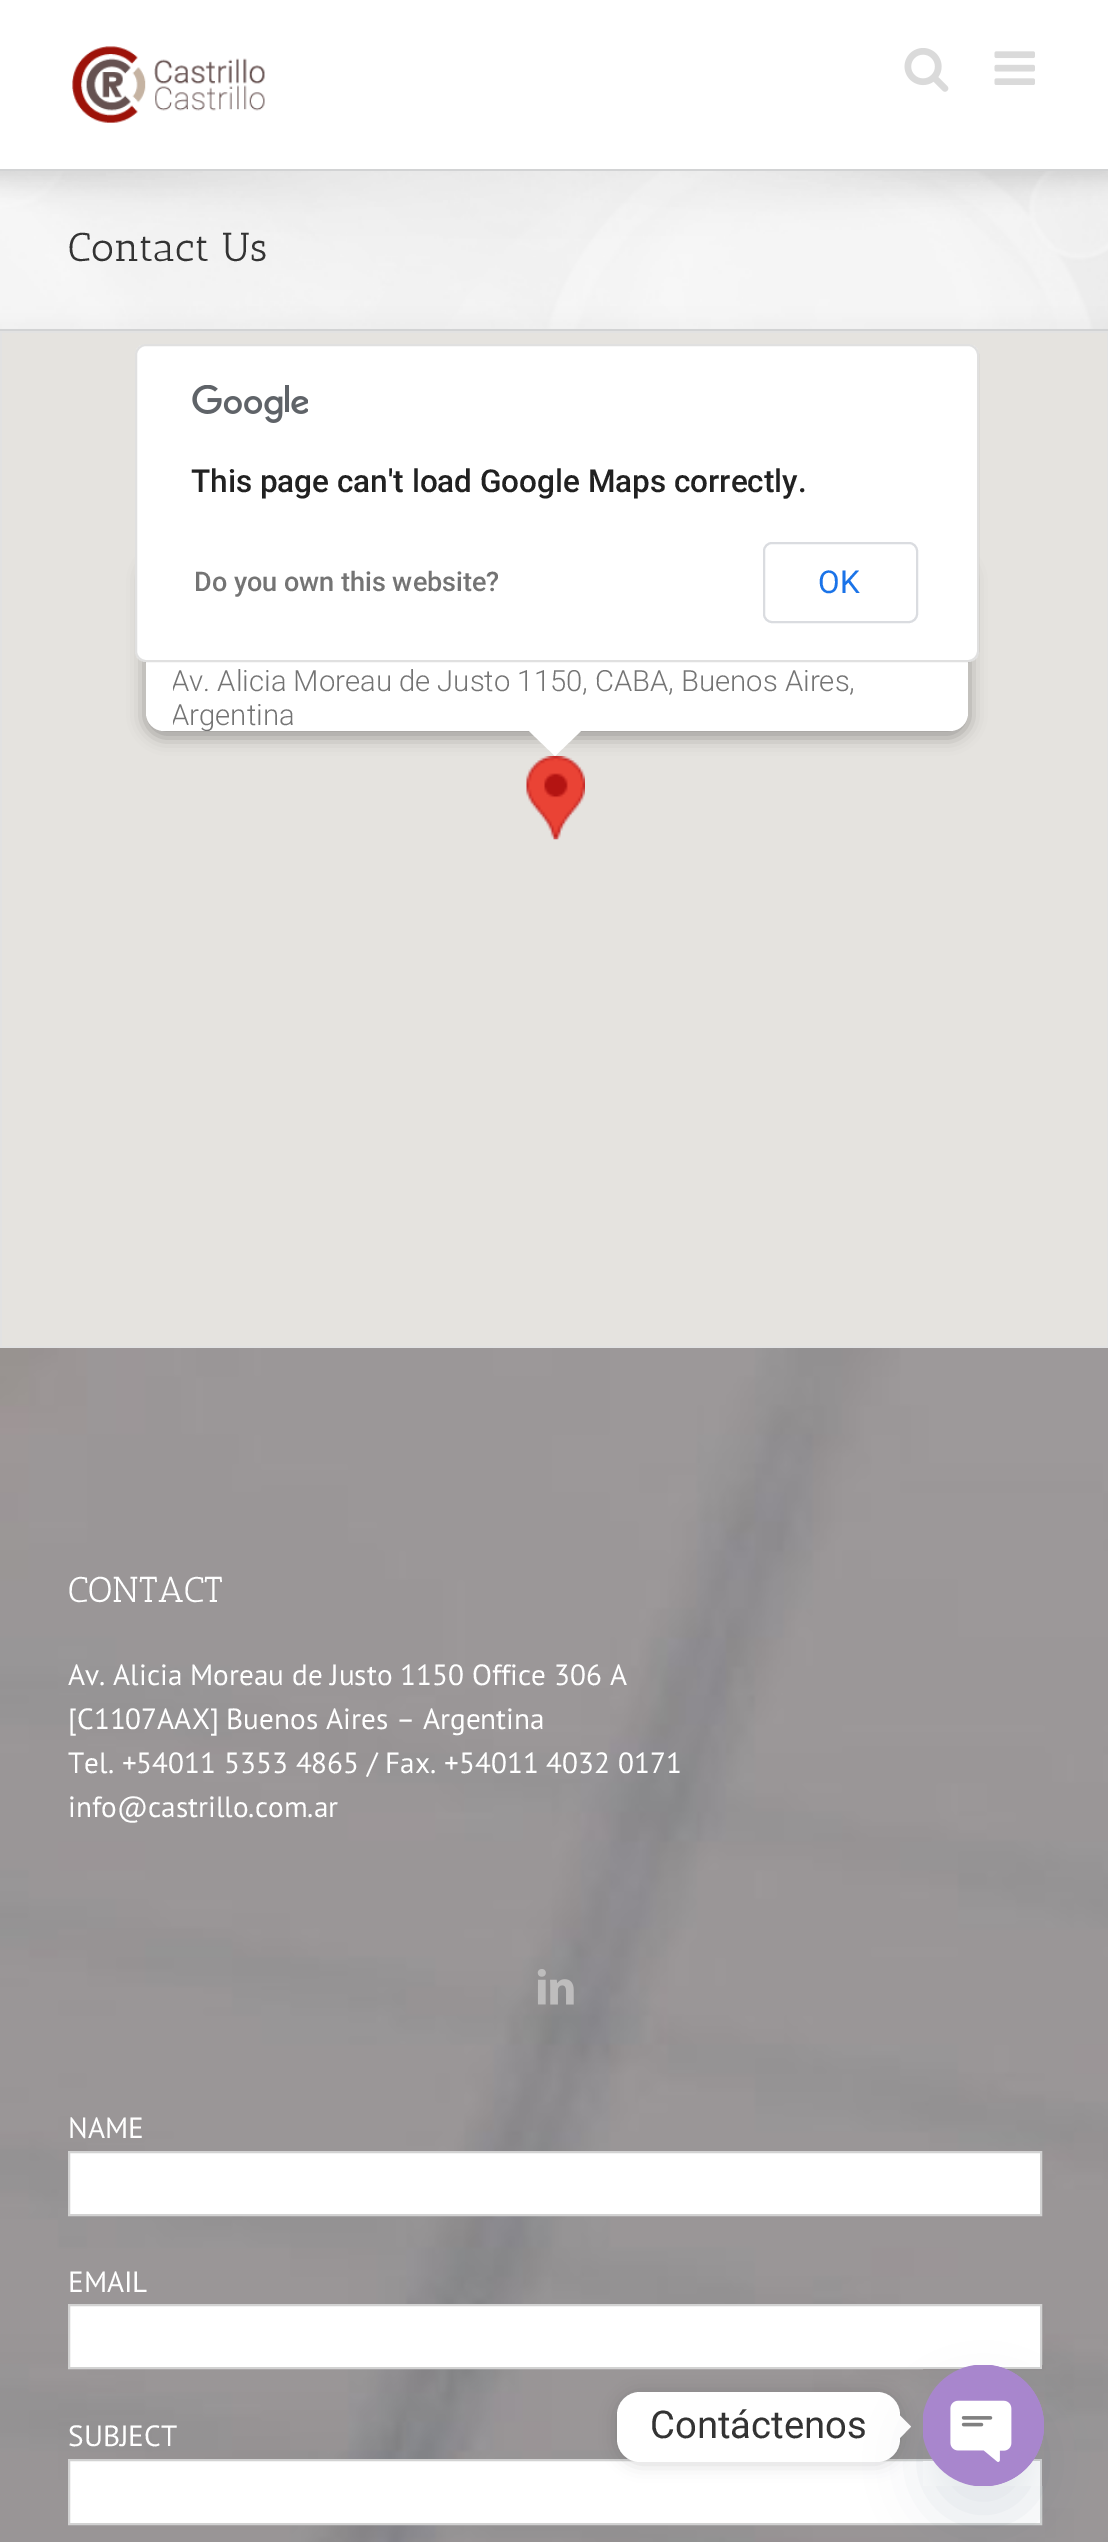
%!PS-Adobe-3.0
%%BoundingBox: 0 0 1108 2542
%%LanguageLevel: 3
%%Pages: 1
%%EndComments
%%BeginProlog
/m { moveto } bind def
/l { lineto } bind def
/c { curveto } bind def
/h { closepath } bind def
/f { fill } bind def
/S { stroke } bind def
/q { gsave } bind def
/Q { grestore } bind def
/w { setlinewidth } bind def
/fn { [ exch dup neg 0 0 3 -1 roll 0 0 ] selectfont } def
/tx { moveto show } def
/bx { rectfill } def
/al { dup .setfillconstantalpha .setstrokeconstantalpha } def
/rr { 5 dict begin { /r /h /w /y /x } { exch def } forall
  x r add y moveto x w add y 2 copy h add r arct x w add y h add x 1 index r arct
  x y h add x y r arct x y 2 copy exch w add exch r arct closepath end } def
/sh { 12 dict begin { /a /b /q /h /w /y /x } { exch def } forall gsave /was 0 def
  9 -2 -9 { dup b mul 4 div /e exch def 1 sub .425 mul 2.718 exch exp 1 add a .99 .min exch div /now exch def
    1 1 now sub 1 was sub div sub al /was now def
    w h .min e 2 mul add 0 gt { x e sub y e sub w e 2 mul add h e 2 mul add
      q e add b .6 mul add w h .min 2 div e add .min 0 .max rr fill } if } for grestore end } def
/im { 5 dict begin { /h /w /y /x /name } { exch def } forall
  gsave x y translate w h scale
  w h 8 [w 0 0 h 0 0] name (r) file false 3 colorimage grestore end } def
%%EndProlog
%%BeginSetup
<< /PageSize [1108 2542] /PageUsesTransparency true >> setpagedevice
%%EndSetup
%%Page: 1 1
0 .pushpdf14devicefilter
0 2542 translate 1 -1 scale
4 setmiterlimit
0.965 setgray
0 0 1108 2542 bx
1 setgray
0 0 1108 169 bx
(image0.raw) 72 46 193 77 im
(image1.raw) 904 48 45 44 im
(image2.raw) 994 51 41 34 im
(image3.raw) 0 171 1108 158 im
0.824 0.827 0.831 setrgbcolor
0 169 1108 2 bx
0 329 1108 2 bx
/AnticSlab-Regular 40.5 fn
0.2 setgray
(Contact Us) 68 261 tx
0.886 setgray
2 w
1 332 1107 1015 rectstroke
0.898 0.89 0.875 setrgbcolor
2 333 1105 1013 bx
(image5.raw) 526 756 59 84 im
0 setgray
144 558 826 180 20 8 0.3 sh
1 setgray
146 556 822 175 18 rr f
135 344 844 318 11 rr f
0.12 al
0 setgray
136 345 842 316 10 rr S
1 al
(image4.raw) 192 385 116 38 im
/Roboto-Medium 31.5 fn
0.129 setgray
(This page can't load Google Maps correctly.) 191 492 tx
/Roboto-Medium 27 fn
0.455 setgray
(Do you own this website?) 194 591 tx
0.855 0.863 0.878 setrgbcolor
764 543 153 79 8 rr S
/Roboto-Regular 31.5 fn
0.102 0.451 0.91 setrgbcolor
(OK) 818 593 tx
q
173 664 795 67 rectclip
/Roboto-Light 29.25 fn
0.455 setgray
(Av. Alicia Moreau de Justo 1150, CABA, Buenos Aires,) 171 691 tx
(Argentina) 171 725 tx
Q
1 setgray
529 729 m 529 731 l 555 756 l 583 729 l h f
(image6.raw) 0 1348 1108 1194 im
/AnticSlab-Regular 36 fn
(CONTACT) 68 1602 tx
/PTSans-Regular 29.25 fn
(Av. Alicia Moreau de Justo 1150 Office 306 A) 68 1685 tx
([C1107AAX] Buenos Aires – Argentina) 68 1729 tx
(Tel. +54011 5353 4865 / Fax. +54011 4032 0171) 68 1773 tx
(info@castrillo.com.ar) 68 1817 tx
(image7.raw) 537 1969 37 36 im
(NAME) 68 2138 tx
69 2152 m 1041 2152 l 1041 2215 l 69 2215 l h q f Q
0.824 setgray
S
1 setgray
(EMAIL) 68 2292 tx
69 2305 m 1041 2305 l 1041 2368 l 69 2368 l h q f Q
0.824 setgray
S
1 setgray
(SUBJECT) 68 2446 tx
69 2460 m 1041 2460 l 1041 2524 l 69 2524 l h q f Q
0.824 setgray
S
q
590 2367 m 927 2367 l 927 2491 l 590 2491 l h 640 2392 m 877 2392 l 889.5 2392 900 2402.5 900 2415 c 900 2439 l 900 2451.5 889.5 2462 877 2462 c 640 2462 l 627.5 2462 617 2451.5 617 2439 c 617 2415 l 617 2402.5 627.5 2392 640 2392 c h eoclip newpath
0 setgray
617 2394 283 70 23 8.5 0.15 sh
Q
1 setgray
617 2392 283 70 23 rr f
/Roboto-Regular 38.25 fn
0.2 setgray
(Contáctenos) 650 2438 tx
1 setgray
900 2438 m 900 2415.5 l 911 2426.5 l h f
0.286 0.408 0.494 setrgbcolor
923 2401 121 121 60.5 27 0.16 sh
(image8.raw) 923 2365 121 121 im
.poppdf14devicefilter showpage
%%EOF
